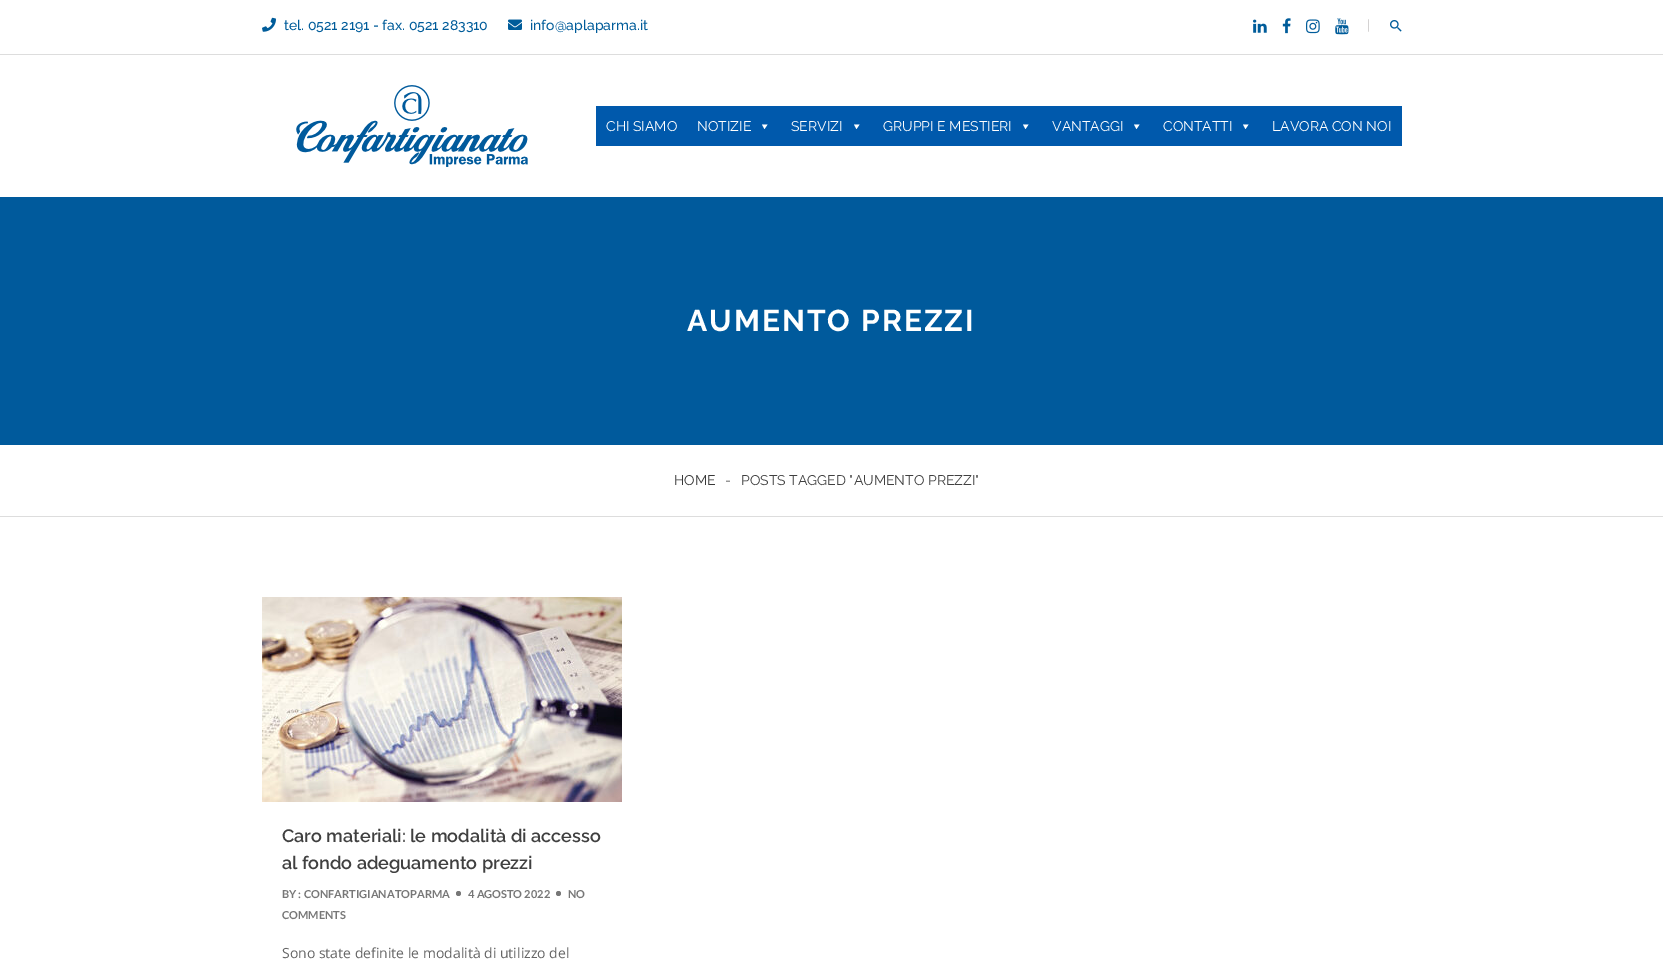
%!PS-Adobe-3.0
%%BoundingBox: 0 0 1663 972
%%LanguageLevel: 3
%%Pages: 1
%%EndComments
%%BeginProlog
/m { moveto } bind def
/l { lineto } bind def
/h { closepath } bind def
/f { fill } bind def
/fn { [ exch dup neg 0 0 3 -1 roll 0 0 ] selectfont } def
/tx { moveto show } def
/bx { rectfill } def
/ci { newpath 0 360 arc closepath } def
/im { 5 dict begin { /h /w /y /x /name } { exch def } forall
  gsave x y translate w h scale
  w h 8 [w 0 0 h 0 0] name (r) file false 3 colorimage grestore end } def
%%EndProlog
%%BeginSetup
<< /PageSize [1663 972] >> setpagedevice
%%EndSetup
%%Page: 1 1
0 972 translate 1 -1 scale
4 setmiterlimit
1 setgray
0 0 1663 972 bx
(image0.raw) 262 17 14 15 im
/Raleway-Medium 14 fn
0 0.361 0.604 setrgbcolor
(tel. 0521 2191 - fax. 0521 283310) 284 30 tx
(image1.raw) 508 19 14 11 im
(info@aplaparma.it) 530 30 tx
(image2.raw) 1253 19 14 14 im
(image3.raw) 1282 18 9 16 im
(image4.raw) 1306 19 14 15 im
(image5.raw) 1335 18 14 17 im
/Raleway-Regular 14 fn
0.773 0.761 0.761 setrgbcolor
(|) 1367 30 tx
(image6.raw) 1390 20 12 12 im
0.867 setgray
0 54 1663 1 bx
(image7.raw) 296 85 232 82 im
0 0.349 0.675 setrgbcolor
596 106 806 40 bx
1 setgray
(CHI SIAMO) 606 131 tx
(NOTIZIE) 697 131 tx
767.5 124.5 m 764.5 129 l 762 124.5 l h f
(SERVIZI) 791 131 tx
859.5 124.5 m 856.5 129 l 854 124.5 l h f
(GRUPPI E MESTIERI) 883 131 tx
1028.5 124.5 m 1025.5 129 l 1023 124.5 l h f
(VANTAGGI) 1052 131 tx
1139.5 124.5 m 1136.5 129 l 1134 124.5 l h f
(CONTATTI) 1163 131 tx
1248.5 124.5 m 1245.5 129 l 1243 124.5 l h f
(LAVORA CON NOI) 1272 131 tx
0 0.353 0.612 setrgbcolor
0 197 1663 248 bx
/Raleway-Bold 30 fn
1 setgray
687 331 m 2 0 (AUMENTO PREZZI) ashow
0.867 setgray
0 516 1663 1 bx
/Raleway-Regular 14 fn
0.22 setgray
(HOME) 674 485 tx
0.251 setgray
(-) 725 485 tx
(POSTS TAGGED "AUMENTO PREZZI") 741 485 tx
(image8.raw) 262 597 360 205 im
/Raleway-SemiBold 18 fn
(Caro materiali: le modalità di accesso) 282 842 tx
(al fondo adeguamento prezzi) 282 869 tx
0.467 setgray
558.5 893.5 2.5 ci f
/Lato-Bold 11 fn
(NO) 568 898 tx
(COMMENTS) 282 919 tx
(BY : CONFARTIGIANATOPARMA) 282 898 tx
458.5 893.5 2.5 ci f
(4 AGOSTO 2022) 468 898 tx
/OpenSans-Regular 14 fn
0.4 setgray
(Sono state definite le modalità di utilizzo del) 282 958 tx
showpage
%%EOF
